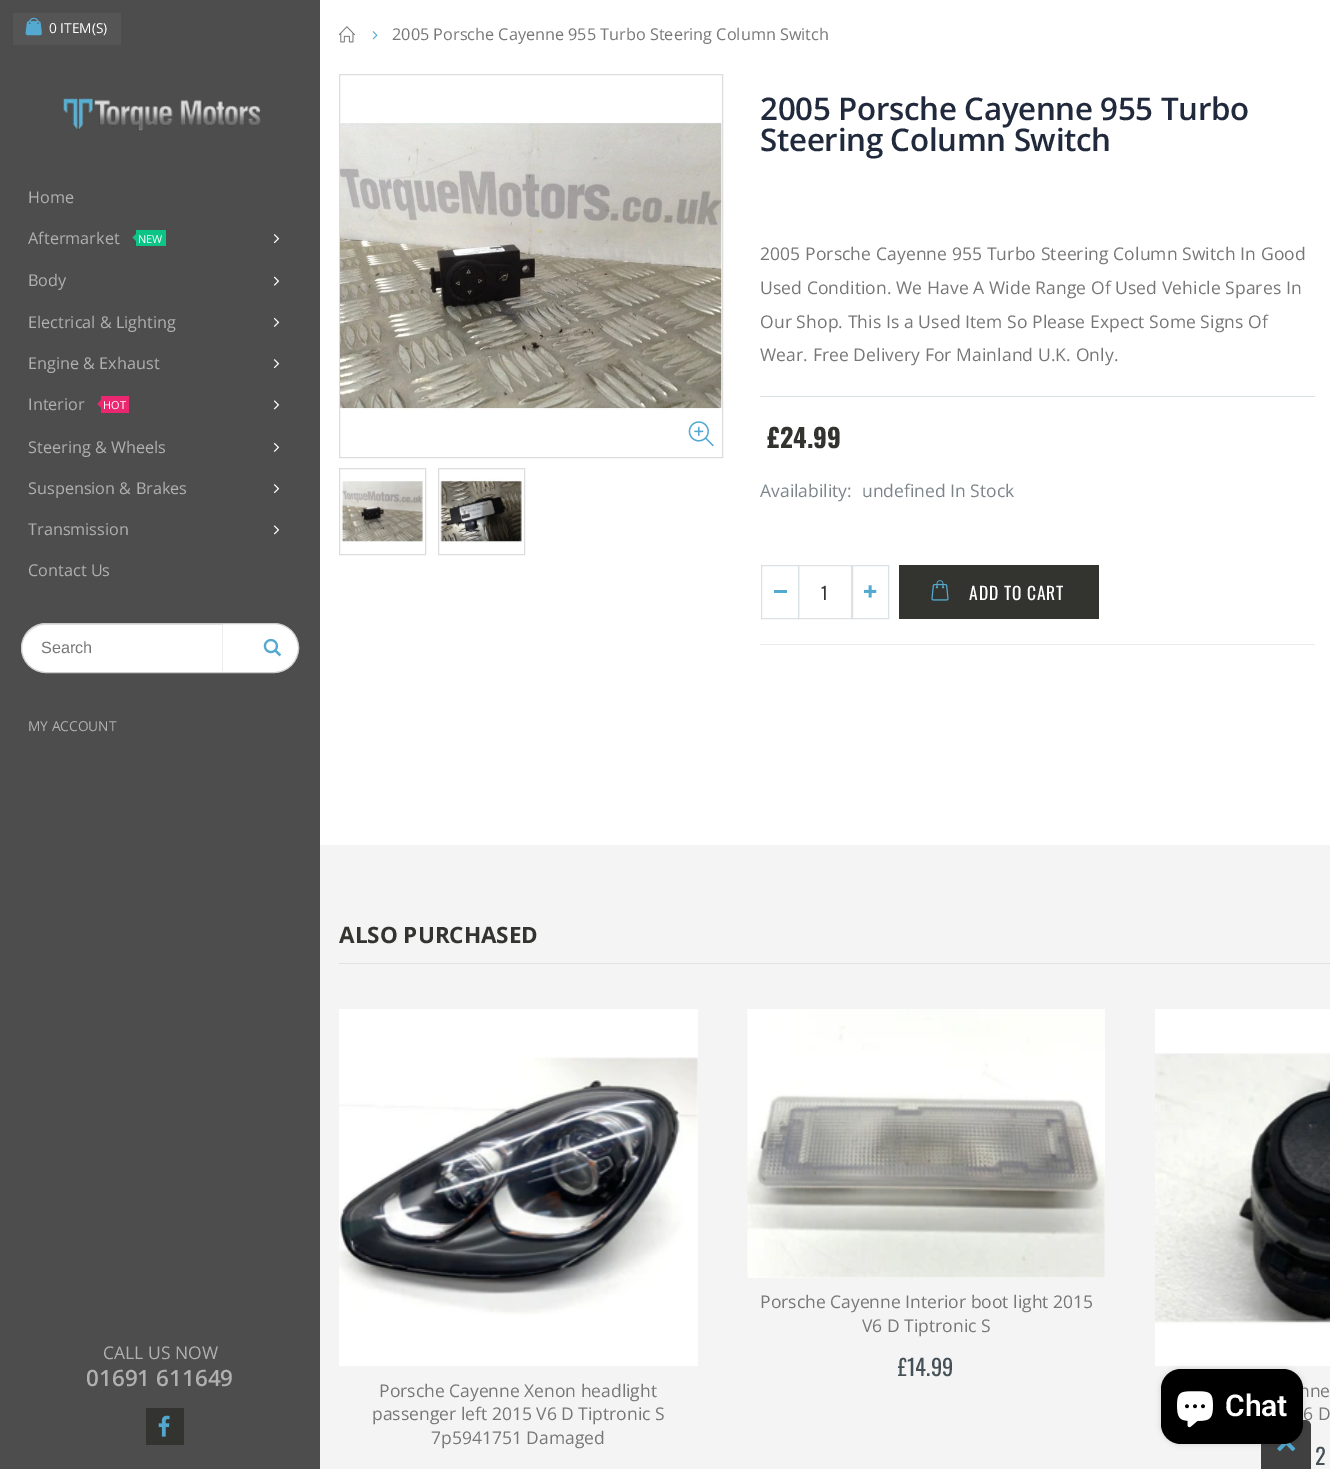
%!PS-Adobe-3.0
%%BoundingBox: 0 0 1330 1469
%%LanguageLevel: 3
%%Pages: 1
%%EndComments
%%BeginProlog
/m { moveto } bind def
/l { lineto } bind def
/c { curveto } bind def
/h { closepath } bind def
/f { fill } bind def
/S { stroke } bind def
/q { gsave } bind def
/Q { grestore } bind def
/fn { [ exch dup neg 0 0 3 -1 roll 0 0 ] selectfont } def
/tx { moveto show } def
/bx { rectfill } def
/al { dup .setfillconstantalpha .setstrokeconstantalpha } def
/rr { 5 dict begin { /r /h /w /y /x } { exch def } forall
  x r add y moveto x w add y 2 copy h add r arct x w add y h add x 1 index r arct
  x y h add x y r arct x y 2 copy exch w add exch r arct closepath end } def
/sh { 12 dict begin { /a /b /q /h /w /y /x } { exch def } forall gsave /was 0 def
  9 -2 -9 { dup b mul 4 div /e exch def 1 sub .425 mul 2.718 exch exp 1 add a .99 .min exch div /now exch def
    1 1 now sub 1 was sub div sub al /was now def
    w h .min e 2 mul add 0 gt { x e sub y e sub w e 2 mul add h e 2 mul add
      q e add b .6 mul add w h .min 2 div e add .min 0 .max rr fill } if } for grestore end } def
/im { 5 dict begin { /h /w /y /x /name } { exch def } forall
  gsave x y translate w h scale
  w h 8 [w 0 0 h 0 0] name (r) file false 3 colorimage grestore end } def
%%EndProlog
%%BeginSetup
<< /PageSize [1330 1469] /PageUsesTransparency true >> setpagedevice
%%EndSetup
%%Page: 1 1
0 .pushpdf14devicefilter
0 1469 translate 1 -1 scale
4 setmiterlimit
1 setgray
0 0 1330 1469 bx
0.302 setgray
0 0 320 1469 bx
0.333 setgray
13 13 108 32 bx
(image0.raw) 25 17 17 19 im
/OpenSans-Regular 13.75 fn
1 setgray
(0 ITEM\(S\)) 49 33 tx
(image1.raw) 63 98 198 33 im
/OpenSans-Regular 16.25 fn
0.69 setgray
(Home) 28 203 tx
(Aftermarket) 28 244 tx
0.047 0.769 0.522 setrgbcolor
136 230 30 16 bx
136 234 m 136 241 l 132.5 237.5 l h f
/OpenSans-Regular 11 fn
1 setgray
(NEW) 138 243 tx
(image2.raw) 273 234 7 10 im
/OpenSans-Regular 16.25 fn
0.69 setgray
(Body) 28 286 tx
(image3.raw) 273 276 7 10 im
(Electrical & Lighting) 28 328 tx
(image4.raw) 273 317 7 10 im
(Engine & Exhaust) 28 369 tx
(image2.raw) 273 359 7 10 im
(Interior) 28 410 tx
0.922 0.153 0.443 setrgbcolor
101 396 28 17 bx
101 400 m 101 407.5 l 97.5 404 l h f
/OpenSans-Regular 11 fn
1 setgray
(HOT) 103 409 tx
(image5.raw) 273 400 7 10 im
/OpenSans-Regular 16.25 fn
0.69 setgray
(Steering & Wheels) 28 453 tx
(image4.raw) 273 442 7 10 im
(Suspension & Brakes) 28 494 tx
(image2.raw) 273 484 7 10 im
(Transmission) 28 535 tx
(image5.raw) 273 525 7 10 im
(Contact Us) 28 576 tx
1 setgray
21.5 623.5 277 49 24.5 rr q f Q
0.8 setgray
S
0.07 al
0 setgray
46 625 m 222 625 l 222 671 l 223 671 l 223 624 l 46 624 l 38 624 30 629 26 636 c 31 629 38 625 46 625 c h f
/LiberationSans-Regular 16.25 fn
1 al
0.467 setgray
(Search) 41 653 tx
(image6.raw) 263 638 19 19 im
/OpenSans-Regular 13.75 fn
0.69 setgray
(MY ACCOUNT) 28 731 tx
/OpenSans-Regular 17.5 fn
(CALL US NOW) 103 1359 tx
/OpenSans-SemiBold 22.5 fn
(01691 611649) 86 1386 tx
0.2 0.2 0.184 setrgbcolor
146 1408 38 37 bx
(image7.raw) 158 1415 12 22 im
(image8.raw) 339 26 16 17 im
(image9.raw) 372 31 6 9 im
/OpenSans-Regular 16.25 fn
0.467 setgray
(2005 Porsche Cayenne 955 Turbo Steering Column Switch) 392 40 tx
0.867 setgray
339.5 74.5 383 383 rectstroke
(image10.raw) 340 122 382 288 im
(image11.raw) 688 421 26 26 im
339.5 468.5 86 86 rectstroke
(image12.raw) 341 481 82 61 im
438.5 468.5 86 86 rectstroke
(image13.raw) 440 479 82 64 im
/OpenSans-SemiBold 31.25 fn
0.129 0.161 0.235 setrgbcolor
760 120 m -0.3 0 (2005 Porsche Cayenne 955 Turbo) ashow
760 151 m -0.3 0 (Steering Column Switch) ashow
0.855 0.886 0.902 setrgbcolor
760 396 555 1 bx
/OpenSans-Regular 17.5 fn
0.467 setgray
760 260 m 0.1 0 (2005 Porsche Cayenne 955 Turbo Steering Column Switch In Good) ashow
760 294 m 0.1 0 (Used Condition. We Have A Wide Range Of Used Vehicle Spares In) ashow
760 328 m 0.1 0 (Our Shop. This Is a Used Item So Please Expect Some Signs Of) ashow
760 361 m 0.1 0 (Wear. Free Delivery For Mainland U.K. Only.) ashow
/Oswald-Bold 26 fn
0.2 0.2 0.184 setrgbcolor
(£24.99) 767 448 tx
/OpenSans-Regular 17.5 fn
0.482 0.522 0.541 setrgbcolor
(Availability:) 760 497 tx
(undefined In Stock) 862 497 tx
0.922 setgray
760 644 555 1 bx
0.882 setgray
798.5 565.5 54 53 rectstroke
0.855 0.886 0.902 setrgbcolor
761.5 565.5 37 53 rectstroke
0.325 0.663 0.816 setrgbcolor
774 590 13 3 bx
0.855 0.886 0.902 setrgbcolor
851.5 565.5 37 53 rectstroke
(image14.raw) 864 585 13 13 im
/Oswald-Regular 17.5 fn
0.2 0.2 0.184 setrgbcolor
(1) 821 600 tx
899 565 200 54 bx
(image15.raw) 931 580 18 21 im
1 setgray
969 600 m 0.9 0 (ADD TO CART) ashow
0.957 setgray
320 845 1010 624 bx
0.882 setgray
339 963 991 1 bx
/OpenSans-Bold 22.5 fn
0.2 0.2 0.184 setrgbcolor
(ALSO PURCHASED) 339 943 tx
1 setgray
748 1009 357 269 bx
(image16.raw) 747 1009 358 269 im
/OpenSans-Regular 17.5 fn
0.467 setgray
(Porsche Cayenne Interior boot light 2015) 760 1308 tx
(V6 D Tiptronic S) 862 1332 tx
/Oswald-Regular 22.5 fn
0.275 0.318 0.341 setrgbcolor
(£14.99) 898 1376 tx
1 setgray
339 1009 359 357 bx
(image17.raw) 339 1057 359 258 im
/OpenSans-Regular 17.5 fn
0.467 setgray
(Porsche Cayenne Xenon headlight) 379 1397 tx
(passenger left 2015 V6 D Tiptronic S) 372 1420 tx
(7p5941751 Damaged) 431 1444 tx
1 setgray
1155 1009 175 357 bx
(image18.raw) 1155 1053 175 271 im
0.467 setgray
(nne) 1299 1397 tx
(6 D) 1303 1420 tx
/Oswald-Regular 22.5 fn
0.275 0.318 0.341 setrgbcolor
(2) 1315 1465 tx
0.251 setgray
1267 1420 m 1305 1420 l 1308.5 1420 1311 1422.5 1311 1426 c 1311 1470 l 1261 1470 l 1261 1426 l 1261 1422.5 1263.5 1420 1267 1420 c h f
(image19.raw) 1277 1442 19 10 im
0 setgray
1161 1369 142 75 20 3 0.15 sh
1161 1369 142 75 20 rr f
(image20.raw) 1177 1391 36 37 im
/Roboto-SemiBold 30 fn
1 setgray
(Chat) 1225 1416 tx
.poppdf14devicefilter showpage
%%EOF
